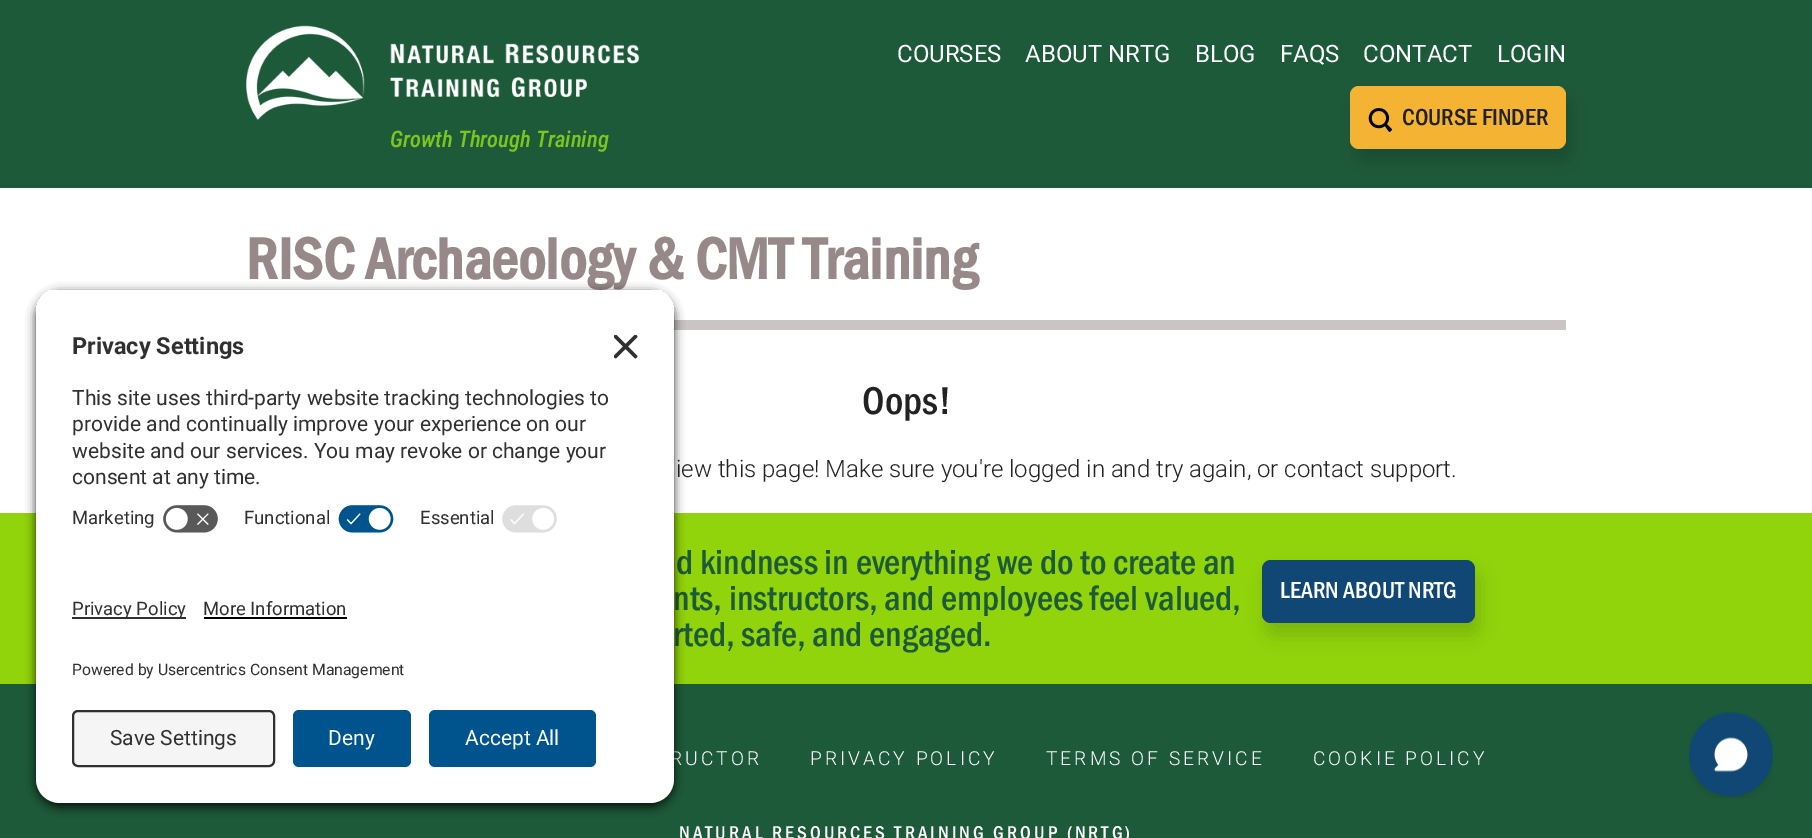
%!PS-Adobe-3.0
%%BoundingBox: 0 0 1812 838
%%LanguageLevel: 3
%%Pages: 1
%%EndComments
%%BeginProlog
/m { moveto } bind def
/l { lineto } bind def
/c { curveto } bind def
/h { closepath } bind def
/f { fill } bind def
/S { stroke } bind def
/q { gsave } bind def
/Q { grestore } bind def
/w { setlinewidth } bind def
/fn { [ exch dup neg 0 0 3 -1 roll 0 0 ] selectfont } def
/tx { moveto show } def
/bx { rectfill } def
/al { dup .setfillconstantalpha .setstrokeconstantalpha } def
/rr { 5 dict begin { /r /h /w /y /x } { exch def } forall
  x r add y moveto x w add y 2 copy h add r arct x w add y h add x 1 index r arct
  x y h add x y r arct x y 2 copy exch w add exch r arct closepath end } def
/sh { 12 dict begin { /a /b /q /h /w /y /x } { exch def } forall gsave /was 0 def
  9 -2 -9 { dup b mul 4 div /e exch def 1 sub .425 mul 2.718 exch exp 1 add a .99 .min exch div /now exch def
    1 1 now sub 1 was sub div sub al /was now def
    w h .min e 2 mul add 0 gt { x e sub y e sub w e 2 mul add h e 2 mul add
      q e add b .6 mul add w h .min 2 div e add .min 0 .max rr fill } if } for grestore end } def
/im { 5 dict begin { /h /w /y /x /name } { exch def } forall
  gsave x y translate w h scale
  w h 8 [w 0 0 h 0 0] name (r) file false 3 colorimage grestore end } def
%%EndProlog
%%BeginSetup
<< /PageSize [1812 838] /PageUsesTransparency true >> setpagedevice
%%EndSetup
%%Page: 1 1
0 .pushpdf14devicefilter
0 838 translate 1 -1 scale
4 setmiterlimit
1 setgray
0 0 1812 838 bx
0.114 0.353 0.224 setrgbcolor
0 0 1812 188 bx
/Roboto-Regular 24 fn
1 setgray
(COURSES) 897 62 tx
(ABOUT NRTG) 1025 62 tx
(BLOG) 1195 62 tx
(FAQS) 1280 62 tx
(CONTACT) 1363 62 tx
(LOGIN) 1497 62 tx
0 setgray
1355 98 216 63 9 9 0.15 sh
0.957 0.702 0.2 setrgbcolor
1350 86 216 63 9 rr f
(image0.raw) 1368 108 24 24 im
/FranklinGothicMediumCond-Medium 24 fn
0.133 setgray
(COURSE FINDER) 1402 125 tx
(image1.raw) 246 25 393 95 im
/RobotoCondensed-MediumItalic 22.75 fn
0.486 0.776 0.125 setrgbcolor
(Growth Through Training) 390 147 tx
0.792 0.769 0.769 setrgbcolor
674 320 892 10 bx
/FranklinGothicMediumCond-Bold 60 fn
0.592 0.533 0.537 setrgbcolor
(RISC Archaeology & CMT Training) 246 279 tx
/FranklinGothicMediumCond-Medium 40 fn
0.133 setgray
(Oops!) 862 414 tx
/Roboto-Light 24 fn
(iew this page! Make sure you're logged in and try again, or contact support.) 676 477 tx
0.569 0.831 0.043 setrgbcolor
0 513 1812 171 bx
/FranklinGothicMediumCond-Medium 36 fn
0.114 0.353 0.224 setrgbcolor
(d kindness in everything we do to create an) 676 574 tx
(nts, instructors, and employees feel valued,) 673 610 tx
(rted, safe, and engaged.) 673 646 tx
0 setgray
1266 572 213 63 9 9 0.15 sh
0.063 0.278 0.455 setrgbcolor
1262 560 213 63 9 rr f
/FranklinGothicMediumCond-Medium 24 fn
1 setgray
(LEARN ABOUT NRTG) 1280 598 tx
0.114 0.353 0.224 setrgbcolor
0 684 1812 154 bx
/Roboto-Light 19.2 fn
1 setgray
670 765 m 3 0 (RUCTOR) ashow
810 765 m 3 0 (PRIVACY POLICY) ashow
1046 765 m 3 0 (TERMS OF SERVICE) ashow
1313 765 m 3 0 (COOKIE POLICY) ashow
/FranklinGothicMediumCond-Medium 19.2 fn
679 839 m 3 0 (NATURAL RESOURCES TRAINING GROUP \(NRTG\)) ashow
0 setgray
36 293 638 514 24 5 0.8 sh
q
60 288 m 650 288 l 663.5 288 674 298.5 674 312 c 674 557 l 36 557 l 36 312 l 36 298.5 46.5 288 60 288 c h clip newpath
1 setgray
36 290 638 267 bx
36 290 638 207 bx
Q
/Roboto-Bold 23.5 fn
0.188 setgray
(Privacy Settings) 72 354 tx
(image2.raw) 614 335 24 24 im
/Roboto-Regular 21 fn
(This site uses third-party website tracking technologies to) 72 405 tx
(provide and continually improve your experience on our) 72 431 tx
(website and our services. You may revoke or change your) 72 458 tx
(consent at any time.) 72 484 tx
/Roboto-Regular 18.5 fn
(Marketing) 72 524 tx
(image3.raw) 163 505 55 28 im
(Functional) 244 524 tx
(image4.raw) 338 505 56 29 im
(Essential) 420 524 tx
(image5.raw) 502 505 55 28 im
1 setgray
36 557 m 674 557 l 674 779 l 674 792.5 663.5 803 650 803 c 60 803 l 46.5 803 36 792.5 36 779 c h f
0.188 setgray
72 617 114 2 bx
(Privacy Policy) 72 615 tx
(More Information) 203 615 tx
0 setgray
204 617 143 2 bx
/Roboto-Regular 15.75 fn
0.188 setgray
(Powered by Usercentrics Consent Management) 72 675 tx
0.961 setgray
73 711 201 55 5 rr q f Q
0.188 setgray
2 w
S
/Roboto-Regular 21 fn
(Save Settings) 110 745 tx
0 0.329 0.557 setrgbcolor
293 710 118 57 6 rr f
1 setgray
(Deny) 328 745 tx
0 0.329 0.557 setrgbcolor
429 710 167 57 6 rr f
1 setgray
(Accept All) 465 745 tx
(image6.raw) 1689 712 84 87 im
.poppdf14devicefilter showpage
%%EOF
